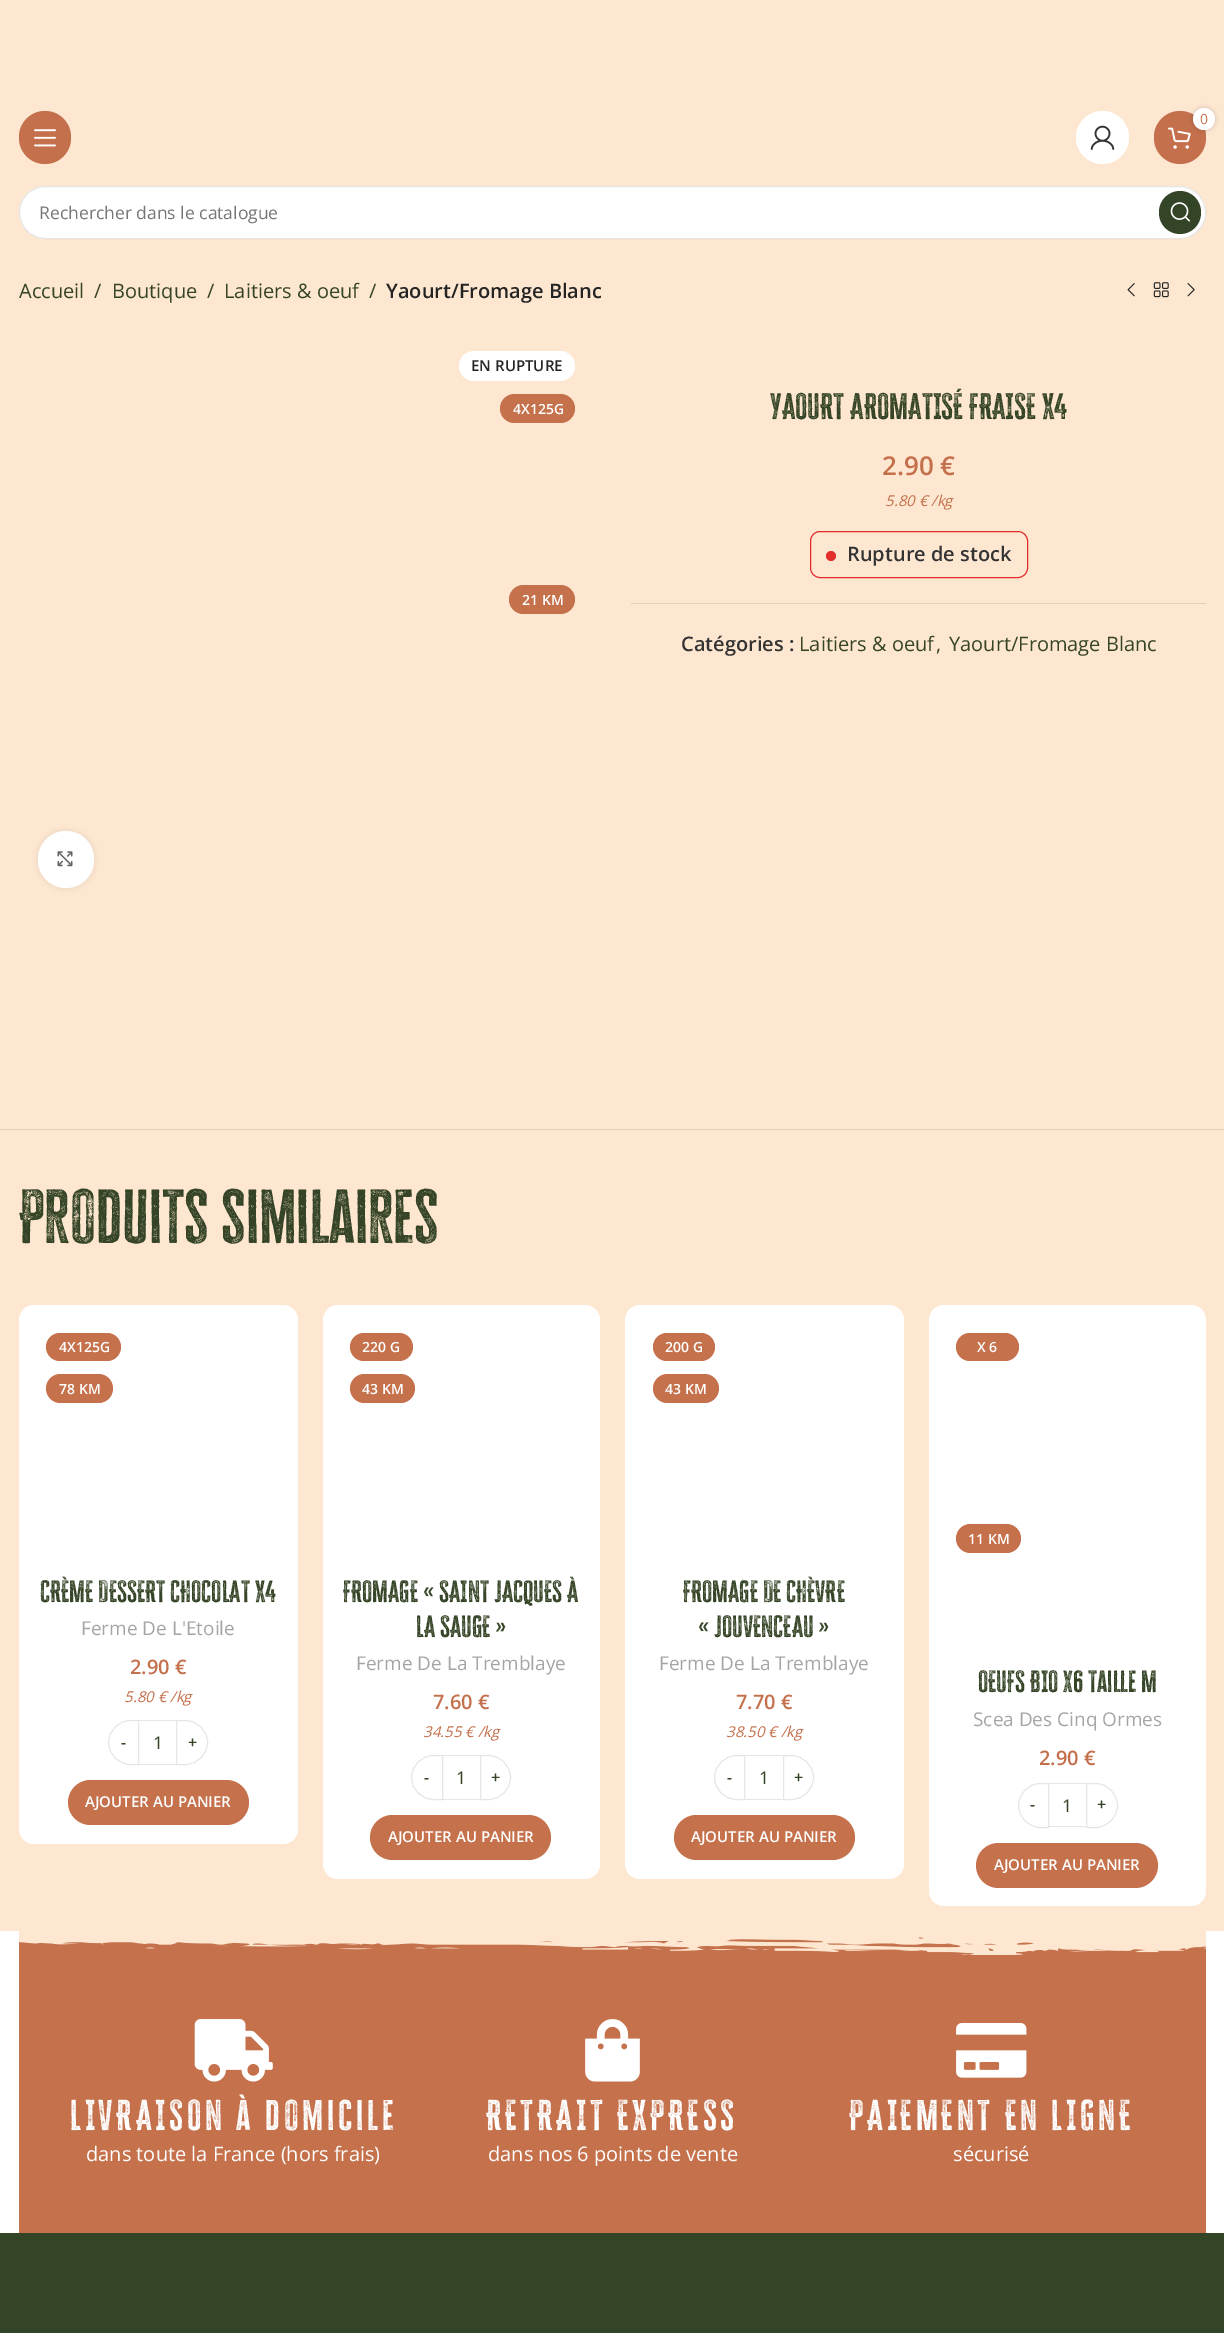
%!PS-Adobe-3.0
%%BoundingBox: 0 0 1224 2333
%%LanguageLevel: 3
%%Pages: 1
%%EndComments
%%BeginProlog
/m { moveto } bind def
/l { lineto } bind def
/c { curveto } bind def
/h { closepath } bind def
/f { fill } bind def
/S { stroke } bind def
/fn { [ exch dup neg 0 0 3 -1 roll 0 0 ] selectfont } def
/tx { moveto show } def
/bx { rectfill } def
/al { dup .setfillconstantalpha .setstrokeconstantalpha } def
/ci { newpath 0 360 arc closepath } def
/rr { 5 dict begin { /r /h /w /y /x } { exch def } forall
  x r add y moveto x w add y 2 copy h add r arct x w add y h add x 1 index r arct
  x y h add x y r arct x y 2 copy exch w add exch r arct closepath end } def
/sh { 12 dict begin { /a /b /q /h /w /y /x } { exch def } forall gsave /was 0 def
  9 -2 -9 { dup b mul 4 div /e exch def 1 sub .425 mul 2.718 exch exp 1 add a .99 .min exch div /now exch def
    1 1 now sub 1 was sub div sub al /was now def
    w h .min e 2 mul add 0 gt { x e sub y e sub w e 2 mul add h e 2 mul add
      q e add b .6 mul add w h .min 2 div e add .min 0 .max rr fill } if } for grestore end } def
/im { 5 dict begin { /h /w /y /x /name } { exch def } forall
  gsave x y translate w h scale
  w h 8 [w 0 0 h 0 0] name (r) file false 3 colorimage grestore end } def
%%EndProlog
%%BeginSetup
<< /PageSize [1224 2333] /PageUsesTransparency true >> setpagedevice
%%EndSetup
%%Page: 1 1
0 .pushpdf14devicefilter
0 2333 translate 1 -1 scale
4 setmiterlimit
1 setgray
0 0 1224 2333 bx
0.996 0.906 0.82 setrgbcolor
0 0 1224 250 bx
0.769 0.439 0.298 setrgbcolor
19 111 52 53 26 rr f
(image0.raw) 34 129 22 18 im
1 setgray
1102.5 137.5 26.5 ci f
(image1.raw) 1090 125 25 25 im
0.769 0.439 0.298 setrgbcolor
1154 111 52 53 26 rr f
(image2.raw) 1167 127 24 22 im
0 setgray
1193 108 22 22 11 2.5 0.17 sh
1 setgray
1204 119 11 ci f
/OpenSans-Regular 14 fn
0.769 0.439 0.298 setrgbcolor
(0) 1200 124 tx
1 setgray
19 186 1187 53 26.5 rr f
0.1 al
0 setgray
19.5 186.5 1186 52 26 rr S
/OpenSans-Regular 17.5 fn
1 al
0.463 setgray
(Rechercher dans le catalogue) 39 219 tx
0.204 0.267 0.149 setrgbcolor
1159 191 42 43 21 rr f
(image3.raw) 1170 202 20 20 im
0.996 0.906 0.82 setrgbcolor
0 250 1224 1681 bx
/OpenSans-Regular 20 fn
0.208 0.267 0.149 setrgbcolor
(Accueil) 19 298 tx
(/) 94 298 tx
(Boutique) 112 298 tx
(/) 207 298 tx
(Laitiers & oeuf) 224 298 tx
(/) 369 298 tx
/OpenSans-SemiBold 20 fn
0.141 setgray
(Yaourt/Fromage Blanc) 386 298 tx
(image4.raw) 1127 283 8 14 im
(image5.raw) 1153 282 16 16 im
(image6.raw) 1187 283 8 14 im
1 setgray
459 351 116 30 15 rr f
/OpenSans-SemiBold 15 fn
0.141 setgray
(EN RUPTURE) 471 371 tx
0.769 0.443 0.298 setrgbcolor
500 394 75 29 14.5 rr f
/OpenSans-SemiBold 14 fn
1 setgray
(4X125G) 513 414 tx
0.769 0.443 0.298 setrgbcolor
509 585 66 29 14.5 rr f
1 setgray
(21 KM) 522 605 tx
0 setgray
38 831 56 57 28 3 0.08 sh
1 setgray
38 831 56 57 28 rr f
(image7.raw) 57 851 16 16 im
/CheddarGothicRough-Regular 30 fn
0.208 0.267 0.149 setrgbcolor
(YAOURT AROMATISÉ FRAISE X4) 770 419 tx
/OpenSans-SemiBold 26 fn
0.769 0.439 0.298 setrgbcolor
(2.90 €) 882 475 tx
/OpenSans-Italic 15 fn
(5.80 € /kg) 885 506 tx
0.886 0.176 0.176 setrgbcolor
810.5 531.5 217 46 9.5 rr S
831 556 5 ci f
/OpenSans-SemiBold 20 fn
0.2 setgray
(Rupture de stock) 847 561 tx
0.89 0.812 0.733 setrgbcolor
631 603 575 1 bx
0.2 setgray
(Catégories :) 681 651 tx
/OpenSans-Regular 20 fn
0.208 0.267 0.149 setrgbcolor
(Laitiers & oeuf) 799 651 tx
(,) 936 651 tx
(Yaourt/Fromage Blanc) 949 651 tx
0.89 0.812 0.733 setrgbcolor
0 1129 1224 1 bx
/CheddarGothicRough-Regular 62.5 fn
0.208 0.267 0.149 setrgbcolor
(Produits similaires) 19 1243 tx
1 setgray
19 1305 279 539 15 rr f
0.769 0.443 0.298 setrgbcolor
46 1333 75 28 14 rr f
/OpenSans-SemiBold 14 fn
1 setgray
(4X125G) 59 1352 tx
0.769 0.443 0.298 setrgbcolor
46 1374 67 29 14.5 rr f
1 setgray
(78 KM) 59 1394 tx
/CheddarGothicRough-Regular 25 fn
0.208 0.267 0.149 setrgbcolor
(CRÈME DESSERT CHOCOLAT X4) 40 1602 tx
/OpenSans-Regular 19 fn
0.647 setgray
(Ferme De L'Etoile) 81 1635 tx
/OpenSans-SemiBold 20 fn
0.769 0.439 0.298 setrgbcolor
(2.90 €) 130 1674 tx
/OpenSans-Italic 15 fn
(5.80 € /kg) 124 1702 tx
0.902 setgray
130.5 1720.5 m 138.5 1720.5 l 138.5 1764.5 l 130.5 1764.5 l 118.5 1764.5 108.5 1754.5 108.5 1742.5 c 108.5 1730.5 118.5 1720.5 130.5 1720.5 c h S
/OpenSans-SemiBold 16 fn
0.208 0.267 0.149 setrgbcolor
(-) 121 1748 tx
0.902 setgray
139 1720 37 1 bx
139 1764 37 1 bx
/OpenSans-Regular 17.5 fn
0.208 0.267 0.149 setrgbcolor
(1) 153 1749 tx
0.902 setgray
176.5 1720.5 m 185.5 1720.5 l 197.5 1720.5 207.5 1730.5 207.5 1742.5 c 207.5 1754.5 197.5 1764.5 185.5 1764.5 c 176.5 1764.5 l h S
/OpenSans-SemiBold 16 fn
0.208 0.267 0.149 setrgbcolor
(+) 188 1748 tx
0.769 0.443 0.298 setrgbcolor
68 1780 181 45 22.5 rr f
/OpenSans-SemiBold 15 fn
1 setgray
(AJOUTER AU PANIER) 85 1807 tx
323 1305 277 574 15 rr f
0.769 0.443 0.298 setrgbcolor
350 1333 63 28 14 rr f
/OpenSans-SemiBold 14 fn
1 setgray
(220 G) 362 1352 tx
0.769 0.443 0.298 setrgbcolor
350 1374 65 29 14.5 rr f
1 setgray
(43 KM) 362 1394 tx
/CheddarGothicRough-Regular 25 fn
0.208 0.267 0.149 setrgbcolor
(FROMAGE « SAINT JACQUES À) 343 1602 tx
(LA SAUGE ») 416 1637 tx
/OpenSans-Regular 19 fn
0.647 setgray
(Ferme De La Tremblaye) 356 1670 tx
/OpenSans-SemiBold 20 fn
0.769 0.439 0.298 setrgbcolor
(7.60 €) 433 1709 tx
/OpenSans-Italic 15 fn
(34.55 € /kg) 423 1737 tx
0.902 setgray
433.5 1755.5 m 442.5 1755.5 l 442.5 1799.5 l 433.5 1799.5 l 421.5 1799.5 411.5 1789.5 411.5 1777.5 c 411.5 1765.5 421.5 1755.5 433.5 1755.5 c h S
/OpenSans-SemiBold 16 fn
0.208 0.267 0.149 setrgbcolor
(-) 424 1783 tx
0.902 setgray
443 1755 37 1 bx
443 1799 37 1 bx
/OpenSans-Regular 17.5 fn
0.208 0.267 0.149 setrgbcolor
(1) 456 1784 tx
0.902 setgray
480.5 1755.5 m 488.5 1755.5 l 500.5 1755.5 510.5 1765.5 510.5 1777.5 c 510.5 1789.5 500.5 1799.5 488.5 1799.5 c 480.5 1799.5 l h S
/OpenSans-SemiBold 16 fn
0.208 0.267 0.149 setrgbcolor
(+) 491 1783 tx
0.769 0.443 0.298 setrgbcolor
370 1815 181 45 22.5 rr f
/OpenSans-SemiBold 15 fn
1 setgray
(AJOUTER AU PANIER) 388 1842 tx
625 1305 279 574 15 rr f
0.769 0.443 0.298 setrgbcolor
653 1333 62 28 14 rr f
/OpenSans-SemiBold 14 fn
1 setgray
(200 G) 665 1352 tx
0.769 0.443 0.298 setrgbcolor
653 1374 66 29 14.5 rr f
1 setgray
(43 KM) 665 1394 tx
/CheddarGothicRough-Regular 25 fn
0.208 0.267 0.149 setrgbcolor
(FROMAGE DE CHÈVRE) 683 1602 tx
(« JOUVENCEAU ») 698 1637 tx
/OpenSans-Regular 19 fn
0.647 setgray
(Ferme De La Tremblaye) 659 1670 tx
/OpenSans-SemiBold 20 fn
0.769 0.439 0.298 setrgbcolor
(7.70 €) 736 1709 tx
/OpenSans-Italic 15 fn
(38.50 € /kg) 726 1737 tx
0.902 setgray
736.5 1755.5 m 744.5 1755.5 l 744.5 1799.5 l 736.5 1799.5 l 724.5 1799.5 714.5 1789.5 714.5 1777.5 c 714.5 1765.5 724.5 1755.5 736.5 1755.5 c h S
/OpenSans-SemiBold 16 fn
0.208 0.267 0.149 setrgbcolor
(-) 727 1783 tx
0.902 setgray
745 1755 38 1 bx
745 1799 38 1 bx
/OpenSans-Regular 17.5 fn
0.208 0.267 0.149 setrgbcolor
(1) 759 1784 tx
0.902 setgray
783.5 1755.5 m 791.5 1755.5 l 803.5 1755.5 813.5 1765.5 813.5 1777.5 c 813.5 1789.5 803.5 1799.5 791.5 1799.5 c 783.5 1799.5 l h S
/OpenSans-SemiBold 16 fn
0.208 0.267 0.149 setrgbcolor
(+) 794 1783 tx
0.769 0.443 0.298 setrgbcolor
674 1815 181 45 22.5 rr f
/OpenSans-SemiBold 15 fn
1 setgray
(AJOUTER AU PANIER) 691 1842 tx
929 1305 277 601 15 rr f
0.769 0.443 0.298 setrgbcolor
956 1333 63 28 14 rr f
/OpenSans-SemiBold 14 fn
1 setgray
(X 6) 977 1352 tx
0.769 0.443 0.298 setrgbcolor
956 1524 65 29 14.5 rr f
1 setgray
(11 KM) 968 1544 tx
/CheddarGothicRough-Regular 25 fn
0.208 0.267 0.149 setrgbcolor
(OEUFS BIO x6 Taille M) 978 1692 tx
/OpenSans-Regular 19 fn
0.647 setgray
(Scea Des Cinq Ormes) 973 1726 tx
/OpenSans-SemiBold 20 fn
0.769 0.439 0.298 setrgbcolor
(2.90 €) 1039 1765 tx
0.902 setgray
1040.5 1783.5 m 1048.5 1783.5 l 1048.5 1827.5 l 1040.5 1827.5 l 1028.5 1827.5 1018.5 1817.5 1018.5 1805.5 c 1018.5 1793.5 1028.5 1783.5 1040.5 1783.5 c h S
/OpenSans-SemiBold 16 fn
0.208 0.267 0.149 setrgbcolor
(-) 1030 1810 tx
0.902 setgray
1049 1783 37 1 bx
1049 1826 37 1 bx
/OpenSans-Regular 17.5 fn
0.208 0.267 0.149 setrgbcolor
(1) 1062 1812 tx
0.902 setgray
1086.5 1783.5 m 1095.5 1783.5 l 1107.5 1783.5 1117.5 1793.5 1117.5 1805.5 c 1117.5 1817.5 1107.5 1827.5 1095.5 1827.5 c 1086.5 1827.5 l h S
/OpenSans-SemiBold 16 fn
0.208 0.267 0.149 setrgbcolor
(+) 1097 1810 tx
0.769 0.443 0.298 setrgbcolor
976 1843 182 45 22.5 rr f
/OpenSans-SemiBold 15 fn
1 setgray
(AJOUTER AU PANIER) 994 1870 tx
0.769 0.443 0.298 setrgbcolor
19 1937 1187 296 bx
(image8.raw) 19 1931 1187 24 im
(image9.raw) 194 2019 79 63 im
/CheddarGothicRough-Regular 35 fn
1 setgray
70 2130 m 3.75 0 (LIVRAISON à domicile) ashow
/OpenSans-Regular 20 fn
(dans toute la France \(hors frais\)) 86 2161 tx
(image10.raw) 585 2019 55 63 im
/CheddarGothicRough-Regular 35 fn
486 2130 m 3.75 0 (RETRAIT EXPRESS) ashow
/OpenSans-Regular 20 fn
(dans nos 6 points de vente) 488 2161 tx
(image11.raw) 956 2023 71 55 im
/CheddarGothicRough-Regular 35 fn
849 2130 m 3.75 0 (PAIEMENT EN LIGNE) ashow
/OpenSans-Regular 20 fn
(sécurisé) 953 2161 tx
0.204 0.267 0.149 setrgbcolor
0 2233 1224 100 bx
.poppdf14devicefilter showpage
%%EOF
